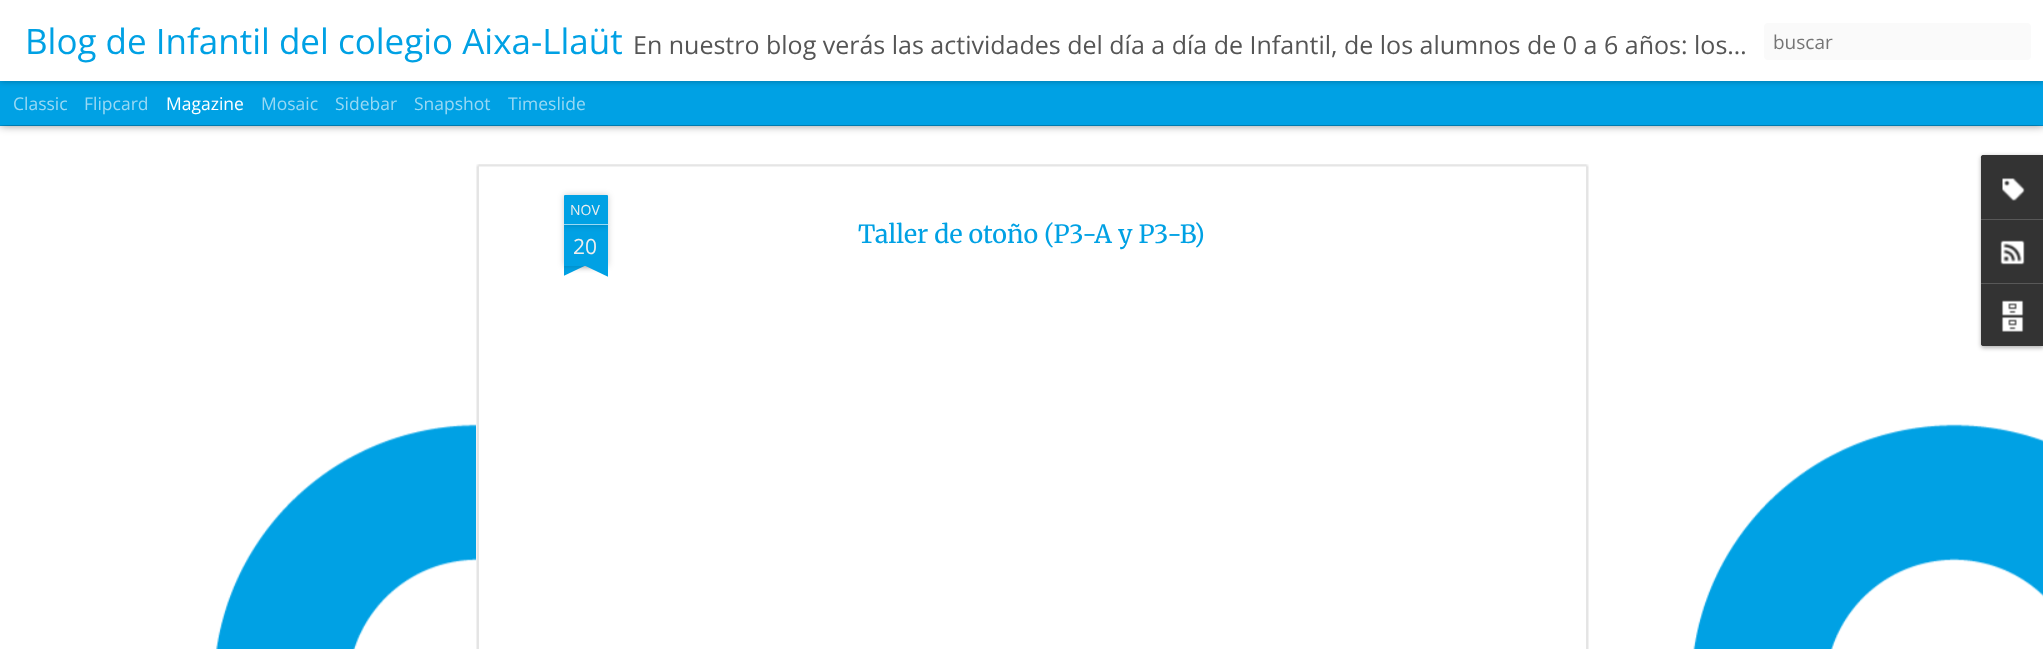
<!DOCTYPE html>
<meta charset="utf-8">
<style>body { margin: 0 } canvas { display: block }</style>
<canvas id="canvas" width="2043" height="649"></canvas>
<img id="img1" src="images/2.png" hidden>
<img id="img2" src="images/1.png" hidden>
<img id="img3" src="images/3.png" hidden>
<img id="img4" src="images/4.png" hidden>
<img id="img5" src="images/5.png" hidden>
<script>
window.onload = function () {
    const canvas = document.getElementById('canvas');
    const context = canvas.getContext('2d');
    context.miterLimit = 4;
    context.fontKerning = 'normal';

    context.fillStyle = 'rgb(0, 161, 228)';
    context.fillRect(0, 0, 2043, 649);
    context.fillStyle = 'rgb(255, 255, 255)';
    context.fillRect(0, 126, 2043, 523);
    context.fillStyle = 'rgba(0, 0, 0, 0.5)';
    context.filter = 'blur(5px)';
    context.beginPath();
    context.rect(0, 81, 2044, 44);
    context.fill();
    context.filter = 'none';
    context.fillStyle = 'rgb(0, 161, 228)';
    context.fillRect(0, 81, 2043, 44);
    context.fillStyle = 'rgba(0, 0, 0, 0.3)';
    context.filter = 'blur(3px)';
    context.beginPath();
    context.rect(0, 0, 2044, 81);
    context.fill();
    context.filter = 'none';
    context.fillStyle = 'rgb(255, 255, 255)';
    context.fillRect(0, 0, 2043, 81);
    context.fillStyle = 'rgb(250, 250, 250)';
    context.beginPath();
    context.roundRect(1764, 23, 267, 37, 4);
    context.fill();
    context.drawImage(document.getElementById('img1'), 216, 424, 1827, 225);
    context.fillStyle = 'rgb(255, 255, 255)';
    context.fillRect(476, 424, 853, 225);
    context.drawImage(document.getElementById('img2'), 476, 164, 1113, 485);
    context.fillStyle = 'rgba(0, 0, 0, 0.2)';
    context.filter = 'blur(3px)';
    context.beginPath();
    context.rect(564, 225, 44, 41);
    context.fill();
    context.filter = 'none';
    context.fillStyle = 'rgb(0, 161, 228)';
    context.fillRect(564, 225, 44, 41);
    context.fillStyle = 'rgba(0, 0, 0, 0.2)';
    context.filter = 'blur(3px)';
    context.beginPath();
    context.roundRect(564, 195, 44, 30, 1);
    context.fill();
    context.filter = 'none';
    context.fillStyle = 'rgb(0, 161, 228)';
    context.beginPath();
    context.roundRect(564, 195, 44, 30, [1, 1, 0, 0]);
    context.fill();
    context.fillStyle = 'rgb(153, 217, 244)';
    context.fillRect(564, 224, 44, 1);
    context.save();
    context.beginPath();
    context.rect(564, 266, 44, 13);
    context.clip();
    context.fillStyle = 'rgba(0, 0, 0, 0.2)';
    context.filter = 'blur(3px)';
    context.beginPath();
    context.rect(553, 254, 62, 12);
    context.fill();
    context.filter = 'none';
    context.restore();
    context.save();
    context.beginPath();
    context.rect(564, 266, 44, 13);
    context.clip();
    context.fillStyle = 'rgb(0, 161, 228)';
    context.beginPath();
    context.moveTo(552, 268);
    context.lineTo(609, 241);
    context.lineTo(614, 252);
    context.lineTo(557, 279);
    context.closePath();
    context.fill();
    context.restore();
    context.save();
    context.beginPath();
    context.rect(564, 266, 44, 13);
    context.clip();
    context.fillStyle = 'rgba(0, 0, 0, 0.2)';
    context.filter = 'blur(3px)';
    context.beginPath();
    context.rect(556, 254, 63, 12);
    context.fill();
    context.filter = 'none';
    context.restore();
    context.save();
    context.beginPath();
    context.rect(564, 266, 44, 13);
    context.clip();
    context.fillStyle = 'rgb(0, 161, 228)';
    context.beginPath();
    context.moveTo(561, 241);
    context.lineTo(618, 268);
    context.lineTo(613, 279);
    context.lineTo(556, 252);
    context.closePath();
    context.fill();
    context.restore();
    context.fillStyle = 'rgba(0, 0, 0, 0.3)';
    context.filter = 'blur(2px)';
    context.beginPath();
    context.roundRect(1981, 156, 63, 192, 2.5);
    context.fill();
    context.filter = 'none';
    context.fillStyle = 'rgb(51, 51, 51)';
    context.beginPath();
    context.moveTo(1983.5, 155);
    context.lineTo(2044, 155);
    context.lineTo(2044, 346);
    context.lineTo(1983.5, 346);
    context.bezierCurveTo(1982, 346, 1981, 345, 1981, 343.5);
    context.lineTo(1981, 157.5);
    context.bezierCurveTo(1981, 156, 1982, 155, 1983.5, 155);
    context.closePath();
    context.fill();
    context.beginPath();
    context.moveTo(1983.5, 155);
    context.lineTo(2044, 155);
    context.lineTo(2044, 219);
    context.lineTo(1981, 219);
    context.lineTo(1981, 157.5);
    context.bezierCurveTo(1981, 156, 1982, 155, 1983.5, 155);
    context.closePath();
    context.fill();
    context.drawImage(document.getElementById('img3'), 2002, 178, 23, 23);
    context.fillStyle = 'rgb(88, 88, 88)';
    context.fillRect(1981, 219, 62, 1);
    context.drawImage(document.getElementById('img4'), 2000, 240, 25, 25);
    context.fillStyle = 'rgb(51, 51, 51)';
    context.beginPath();
    context.moveTo(1981, 283);
    context.lineTo(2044, 283);
    context.lineTo(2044, 346);
    context.lineTo(1983.5, 346);
    context.bezierCurveTo(1982, 346, 1981, 345, 1981, 343.5);
    context.closePath();
    context.fill();
    context.fillStyle = 'rgb(88, 88, 88)';
    context.fillRect(1981, 283, 62, 1);
    context.drawImage(document.getElementById('img5'), 2001, 300, 23, 32);
    context.font = '35px Open Sans';
    context.fillStyle = 'rgb(0, 161, 228)';
    context.fillText('Blog de Infantil del colegio Aixa-Llaüt', 25, 54);
    context.font = '25px Open Sans';
    context.fillStyle = 'rgb(85, 85, 85)';
    context.fillText('En nuestro blog verás las actividades del día a día de Infantil, de los alumnos de 0 a 6 años: los…', 633, 54);
    context.font = '19px Open Sans';
    context.fillStyle = 'rgb(117, 117, 117)';
    context.fillText('buscar', 1773, 49);
    context.font = '17.5px Open Sans';
    context.fillStyle = 'rgb(153, 217, 244)';
    context.fillText('Classic', 13, 110);
    context.fillText('Flipcard', 84, 110);
    context.fillStyle = 'rgb(255, 255, 255)';
    context.fillText('Magazine', 166, 110);
    context.fillStyle = 'rgb(153, 217, 244)';
    context.fillText('Mosaic', 261, 110);
    context.fillText('Sidebar', 335, 110);
    context.fillText('Snapshot', 414, 110);
    context.fillText('Timeslide', 508, 110);
    context.font = '14px Open Sans';
    context.fillStyle = 'rgb(238, 238, 238)';
    context.fillText('NOV', 570, 215);
    context.font = '21px Open Sans';
    context.fillText('20', 573, 254);
    context.font = '300 25px Merriweather';
    context.fillStyle = 'rgb(0, 161, 228)';
    context.fillText('Taller de otoño (P3-A y P3-B)', 858, 243);
};
</script>
